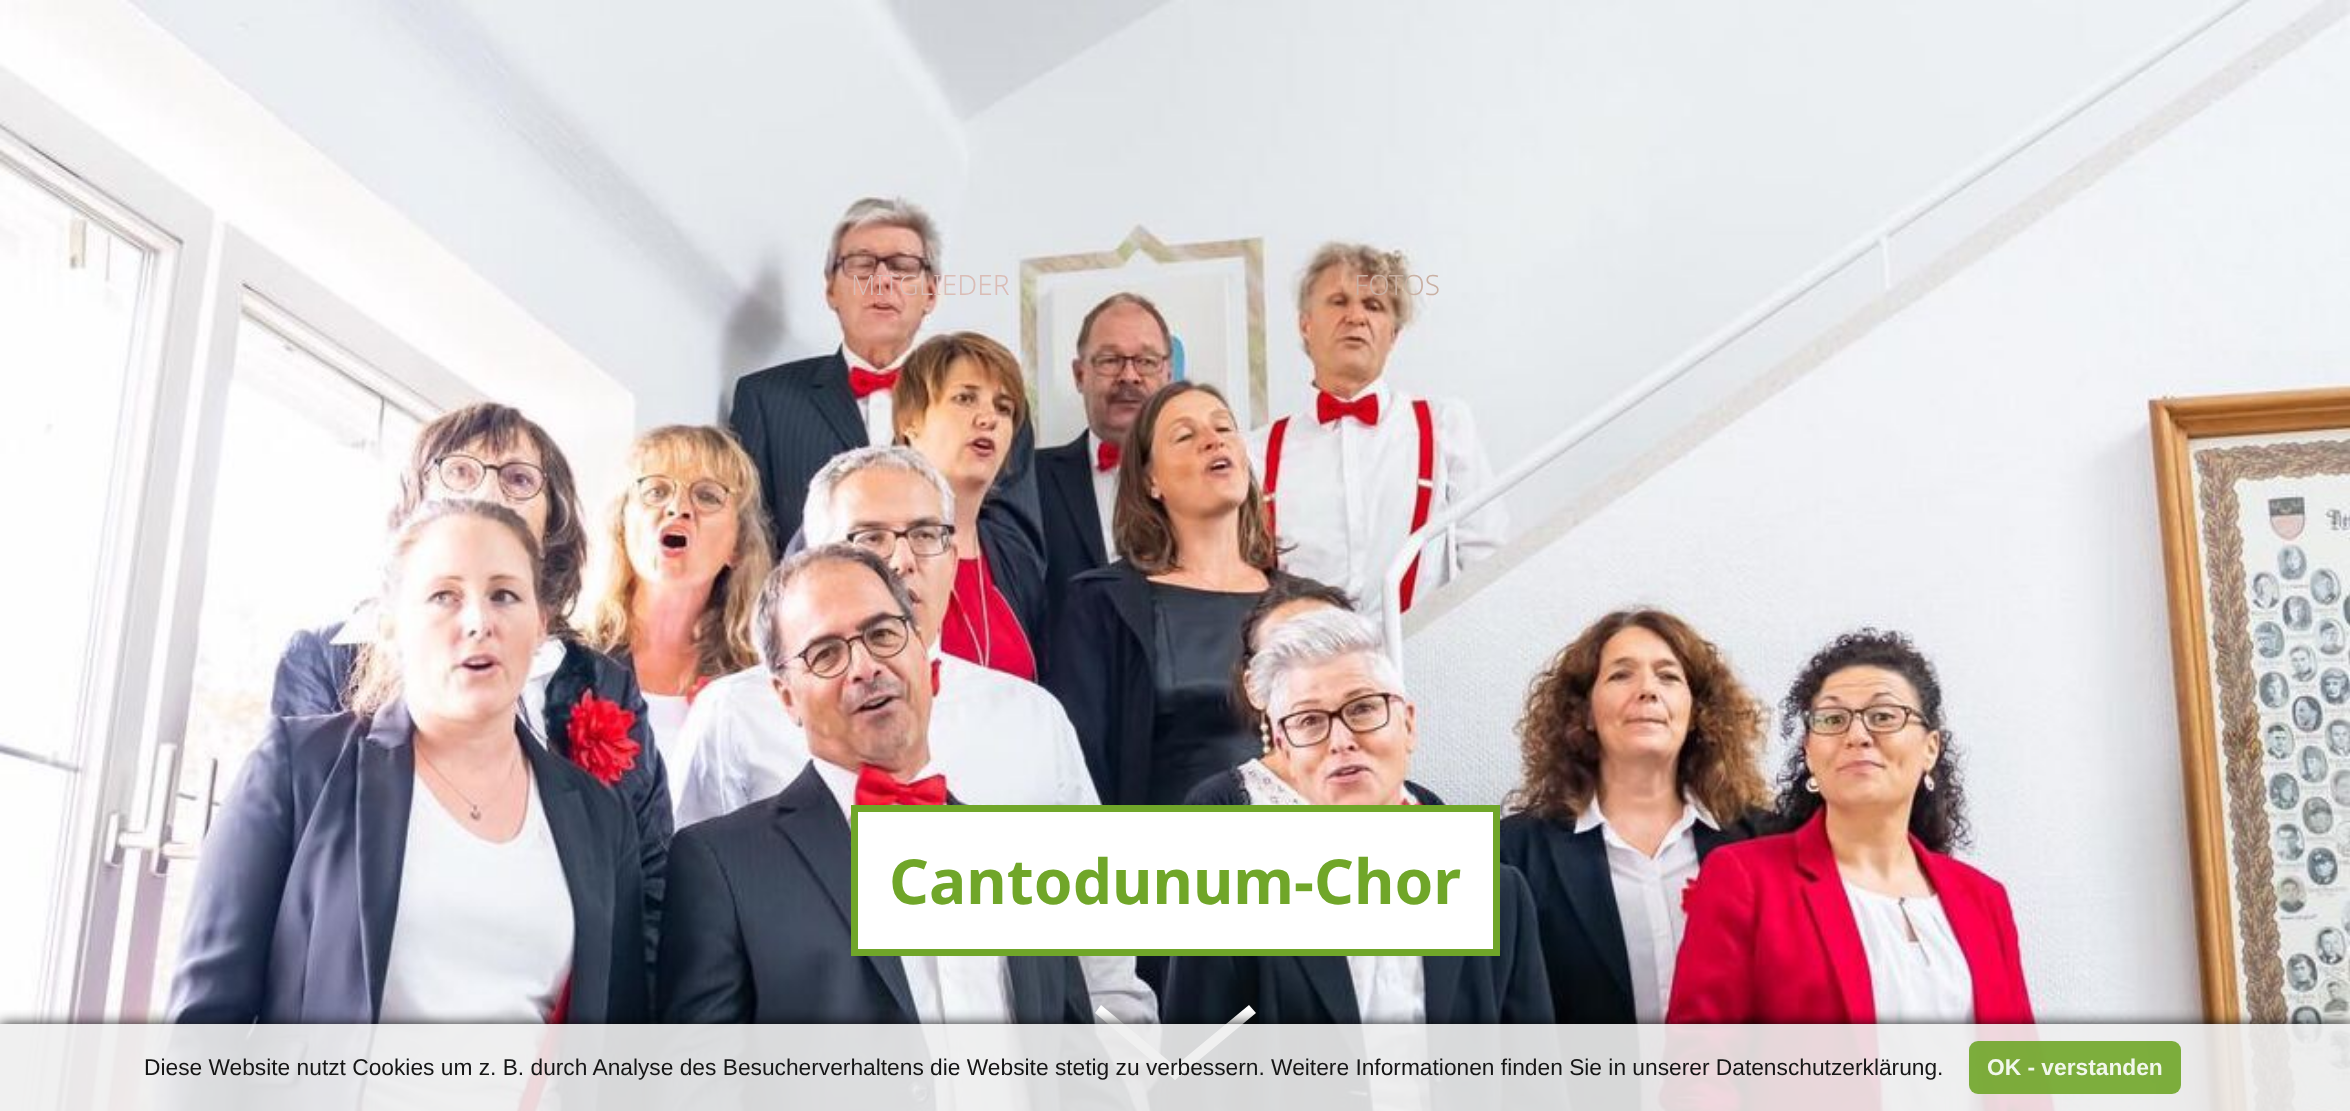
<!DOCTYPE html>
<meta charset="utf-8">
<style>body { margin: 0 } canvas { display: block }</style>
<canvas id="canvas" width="2350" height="1111"></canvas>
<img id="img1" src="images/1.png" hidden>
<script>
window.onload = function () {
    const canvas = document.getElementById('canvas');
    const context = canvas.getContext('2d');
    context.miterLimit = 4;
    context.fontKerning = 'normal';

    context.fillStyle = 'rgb(255, 255, 255)';
    context.fillRect(0, 0, 2350, 1111);
    context.drawImage(document.getElementById('img1'), 0, 0, 2350, 1111);
    context.beginPath();
    context.rect(854.5, 808.5, 642, 144);
    context.fill();
    context.strokeStyle = 'rgb(112, 166, 41)';
    context.lineWidth = 7;
    context.stroke();
    context.beginPath();
    context.moveTo(1101, 1005);
    context.lineTo(1182, 1072);
    context.lineTo(1175, 1080);
    context.lineTo(1095, 1013);
    context.closePath();
    context.fill();
    context.beginPath();
    context.moveTo(1168, 1072);
    context.lineTo(1249, 1005);
    context.lineTo(1256, 1013);
    context.lineTo(1175, 1080);
    context.closePath();
    context.fill();
    context.save();
    context.beginPath();
    context.rect(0, 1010, 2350, 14);
    context.clip();
    context.fillStyle = 'rgba(0, 0, 0, 0.9)';
    context.filter = 'blur(7px)';
    context.beginPath();
    context.rect(0, 1024, 2350, 87);
    context.fill();
    context.filter = 'none';
    context.restore();
    context.fillStyle = 'rgba(238, 238, 238, 0.9)';
    context.fillRect(0, 1024, 2350, 87);
    context.fillStyle = 'rgba(112, 166, 41, 0.9)';
    context.beginPath();
    context.roundRect(1969, 1041, 212, 53, 9);
    context.fill();
    context.font = '300 28px Noto Sans';
    context.fillStyle = 'rgb(218, 188, 181)';
    context.fillText('MITGLIEDER', 851, 295);
    context.fillStyle = 'rgb(201, 176, 163)';
    context.fillText('FOTOS', 1354, 295);
    context.font = 'bold 62.25px Noto Sans';
    context.fillStyle = 'rgb(112, 166, 41)';
    context.fillText('Cantodunum-Chor', 889, 904);
    context.font = '22.75px Liberation Sans';
    context.fillStyle = 'rgb(22, 22, 22)';
    context.fillText('Diese Website nutzt Cookies um z. B. durch Analyse des Besucherverhaltens die Website stetig zu verbessern. Weitere Informationen finden Sie in unserer Datenschutzerklärung.', 144, 1075);
    context.font = 'bold 22.75px Liberation Sans';
    context.fillStyle = 'rgb(242, 247, 236)';
    context.fillText('OK - verstanden', 1987, 1075);
};
</script>
